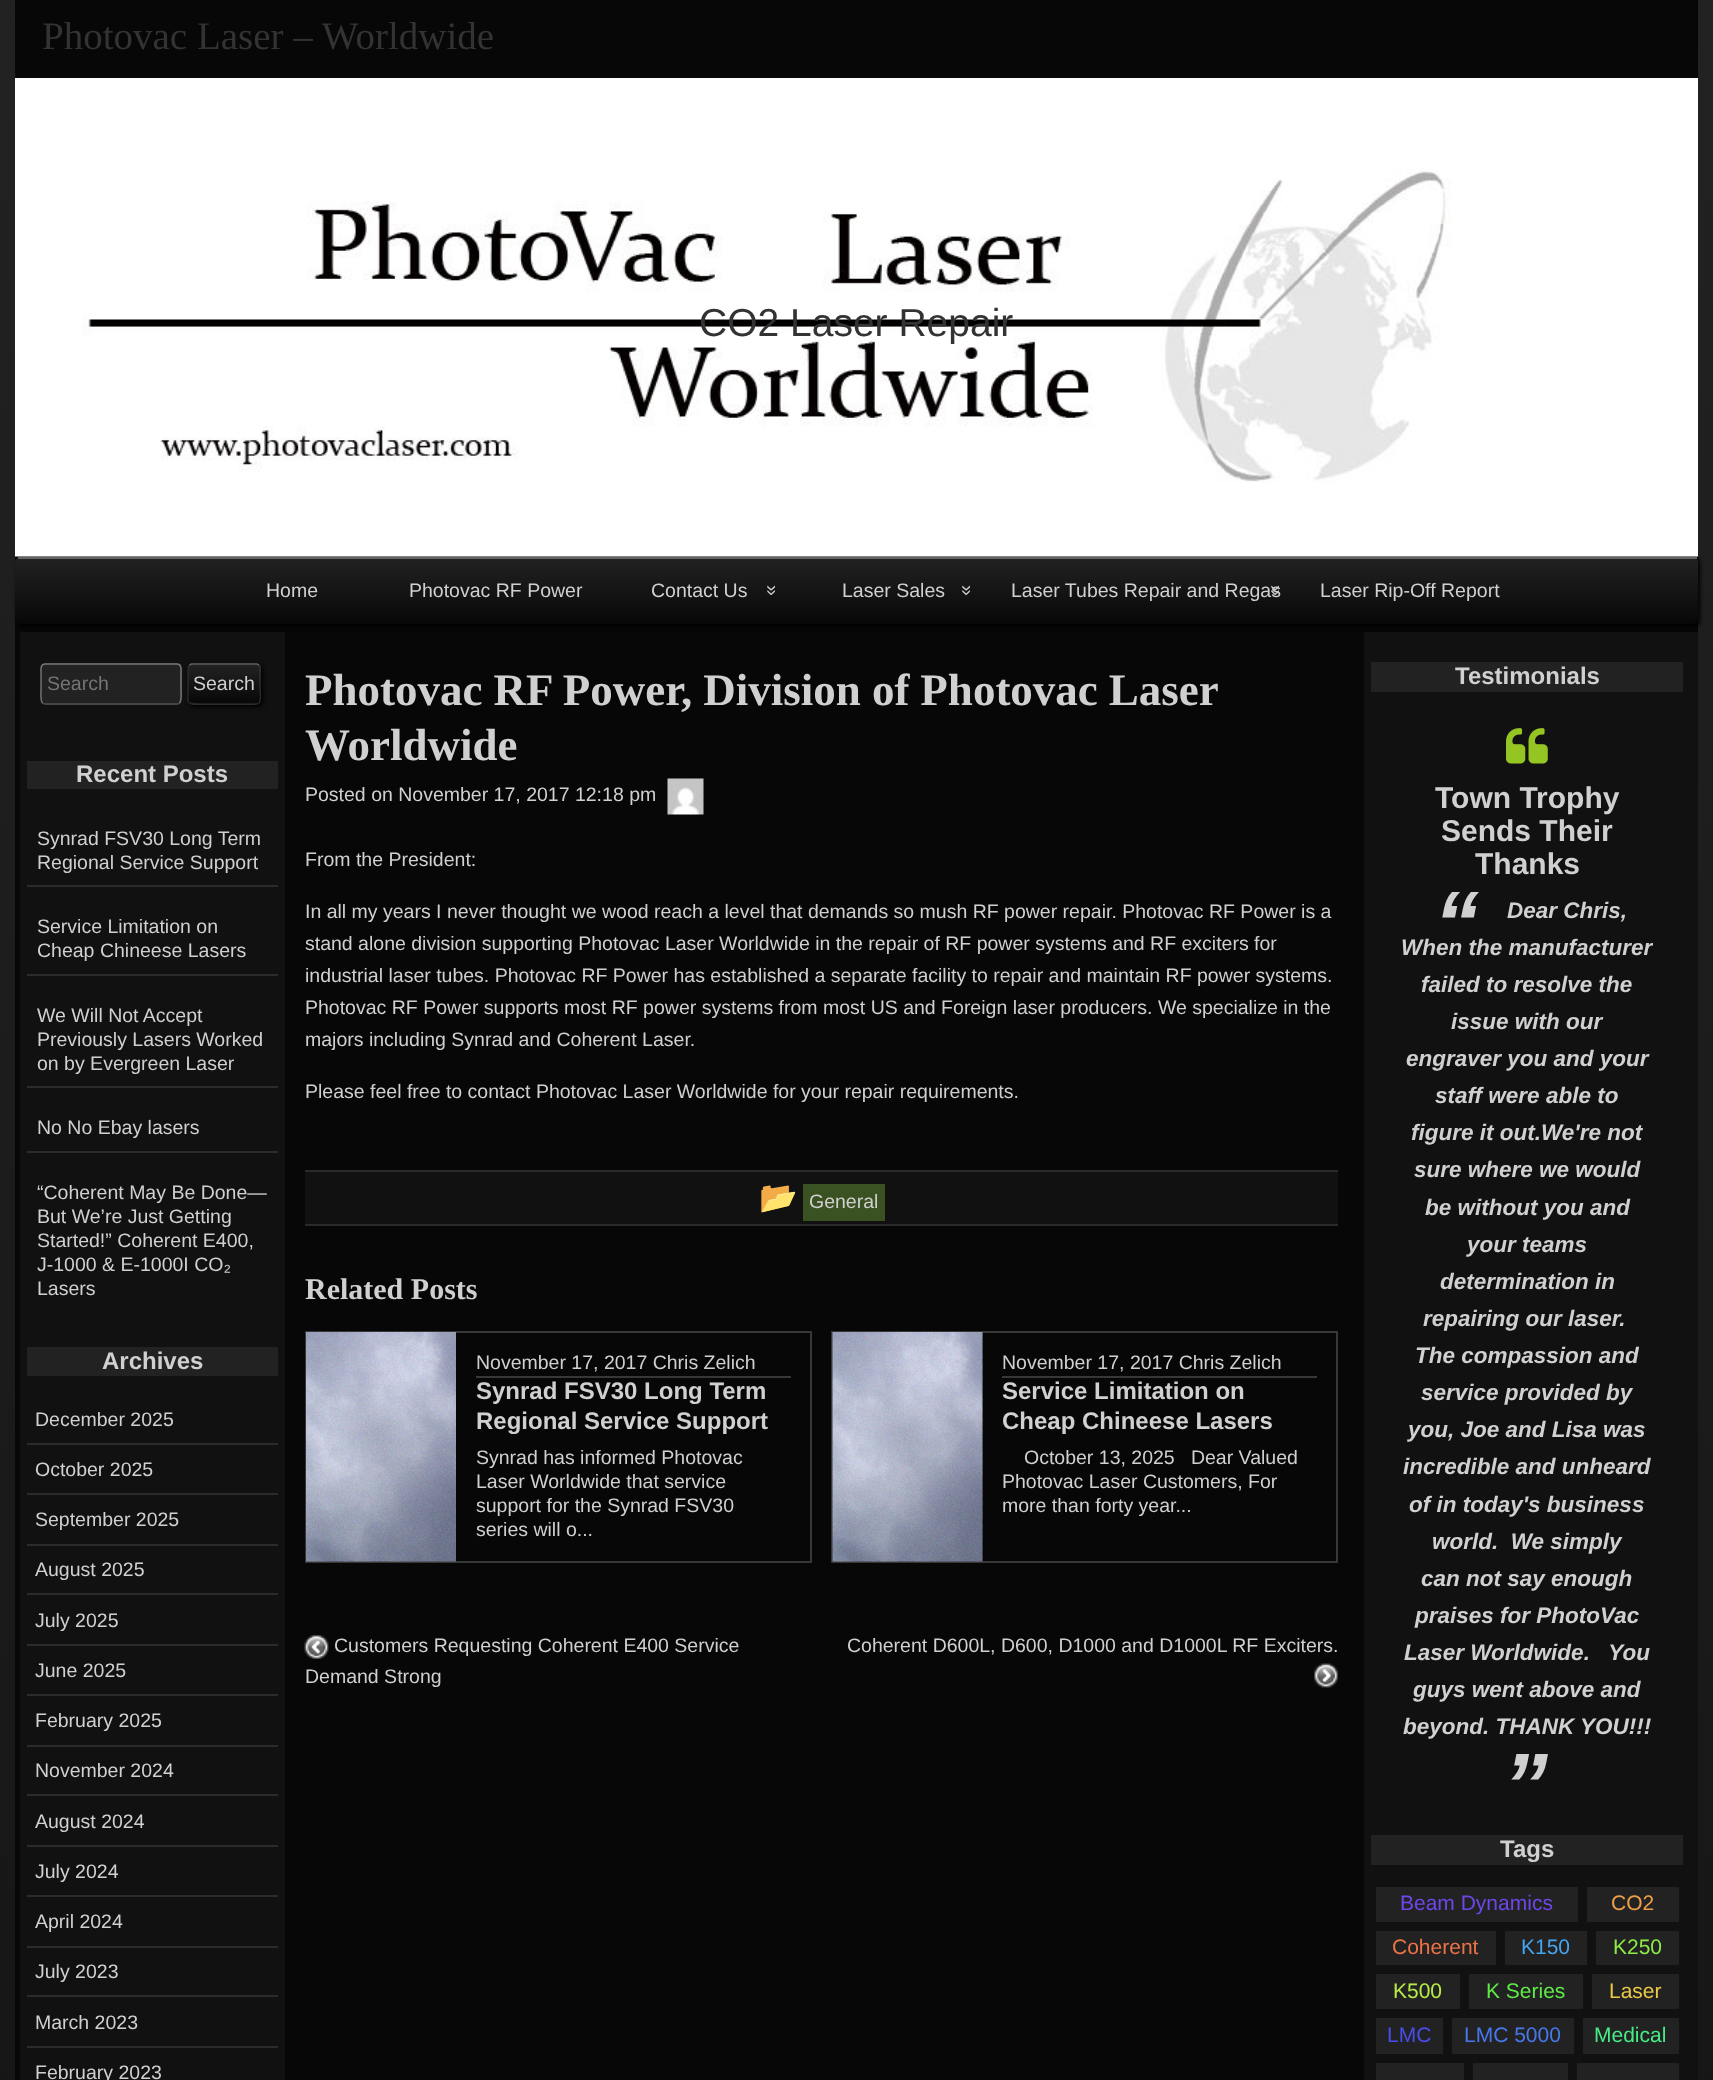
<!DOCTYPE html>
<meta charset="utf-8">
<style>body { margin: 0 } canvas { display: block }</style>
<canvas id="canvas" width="1713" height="2080"></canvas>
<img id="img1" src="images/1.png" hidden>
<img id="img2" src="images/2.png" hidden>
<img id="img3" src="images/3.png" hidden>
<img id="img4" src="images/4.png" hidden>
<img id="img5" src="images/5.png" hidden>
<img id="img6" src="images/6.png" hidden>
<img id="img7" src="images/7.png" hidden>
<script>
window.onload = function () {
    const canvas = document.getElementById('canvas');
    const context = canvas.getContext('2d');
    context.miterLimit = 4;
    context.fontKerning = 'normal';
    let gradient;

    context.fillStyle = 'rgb(255, 255, 255)';
    context.fillRect(0, 0, 1713, 2080);
    gradient = context.createLinearGradient(0, 0, 0, 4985);
    gradient.addColorStop(0, 'rgb(34, 34, 34)');
    gradient.addColorStop(1, 'rgb(7, 7, 7)');
    context.fillStyle = gradient;
    context.fillRect(0, 0, 1713, 2080);
    context.fillStyle = 'rgb(7, 7, 7)';
    context.fillRect(15, 0, 1683, 2080);
    context.fillStyle = 'rgb(0, 0, 0)';
    context.filter = 'blur(2px)';
    context.beginPath();
    context.roundRect(17, 558, 1683, 68, 5);
    context.fill();
    context.filter = 'none';
    context.drawImage(document.getElementById('img1'), 15, 78, 1683, 479);
    context.save();
    context.beginPath();
    context.roundRect(15, 557, 1683, 67, 5);
    context.clip();
    gradient = context.createLinearGradient(15, 558, 15, 624);
    gradient.addColorStop(0, 'rgb(34, 34, 34)');
    gradient.addColorStop(1, 'rgb(7, 7, 7)');
    context.fillStyle = gradient;
    context.beginPath();
    context.roundRect(15, 558, 1683, 66, [0, 0, 5, 5]);
    context.fill();
    context.restore();
    context.fillStyle = 'rgb(100, 100, 100)';
    context.fillRect(18, 557, 1679, 2);
    context.fillStyle = 'rgb(17, 17, 17)';
    context.fillRect(20, 632, 265, 1448);
    context.fillStyle = 'rgb(34, 34, 34)';
    context.beginPath();
    context.roundRect(41, 663, 141, 42, 5);
    context.fill();
    context.beginPath();
    context.moveTo(179.5, 703);
    context.bezierCurveTo(179, 704, 178, 704, 177, 704);
    context.lineTo(45, 704);
    context.bezierCurveTo(44, 704, 43, 704, 42.5, 703);
    context.strokeStyle = 'rgba(127, 127, 127, 0.5)';
    context.lineWidth = 1.5;
    context.stroke();
    context.beginPath();
    context.moveTo(42.5, 703);
    context.bezierCurveTo(40, 700.5, 41, 692, 41, 689.5);
    context.lineTo(41, 673);
    context.bezierCurveTo(41, 670, 40, 664, 45, 664);
    context.lineTo(177, 664);
    context.bezierCurveTo(182, 664, 181, 670, 181, 673);
    context.lineTo(181, 689.5);
    context.bezierCurveTo(181, 692, 182, 700.5, 179.5, 703);
    context.strokeStyle = 'rgba(203, 203, 203, 0.5)';
    context.stroke();
    context.fillStyle = 'rgb(0, 0, 0)';
    context.filter = 'blur(2px)';
    context.beginPath();
    context.roundRect(189, 665, 74, 42, 5);
    context.fill();
    context.filter = 'none';
    context.save();
    context.beginPath();
    context.roundRect(188, 663, 73, 42, 5);
    context.clip();
    gradient = context.createLinearGradient(189, 626, 189, 665);
    gradient.addColorStop(0, 'rgb(34, 34, 34)');
    gradient.addColorStop(1, 'rgb(7, 7, 7)');
    context.fillStyle = gradient;
    context.fillRect(188, 663, 73, 2);
    gradient = context.createLinearGradient(189, 665, 189, 704);
    gradient.addColorStop(0, 'rgb(34, 34, 34)');
    gradient.addColorStop(1, 'rgb(7, 7, 7)');
    context.fillStyle = gradient;
    context.fillRect(188, 665, 73, 39);
    gradient = context.createLinearGradient(189, 704, 189, 743);
    gradient.addColorStop(0, 'rgb(34, 34, 34)');
    gradient.addColorStop(1, 'rgb(7, 7, 7)');
    context.fillStyle = gradient;
    context.fillRect(188, 704, 73, 1);
    context.restore();
    context.beginPath();
    context.moveTo(189.5, 665);
    context.lineTo(191.5, 664);
    context.lineTo(257, 664);
    context.lineTo(259, 665);
    context.strokeStyle = 'rgb(100, 100, 100)';
    context.stroke();
    context.beginPath();
    context.moveTo(259, 665);
    context.bezierCurveTo(261, 667, 260, 671, 260, 673);
    context.lineTo(260, 684);
    context.bezierCurveTo(260, 705, 264.5, 704, 246, 704);
    context.lineTo(203, 704);
    context.bezierCurveTo(184, 704, 188, 705, 188, 684);
    context.lineTo(188, 673);
    context.bezierCurveTo(188, 671, 187.5, 667, 189.5, 665);
    context.strokeStyle = 'rgba(68, 68, 68, 0.5)';
    context.stroke();
    context.fillStyle = 'rgb(34, 34, 34)';
    context.fillRect(27, 761, 251, 28);
    context.fillStyle = 'rgb(43, 43, 43)';
    context.fillRect(27, 885, 251, 2);
    context.fillRect(27, 974, 251, 2);
    context.fillRect(27, 1086, 251, 2);
    context.fillRect(27, 1151, 251, 2);
    context.fillStyle = 'rgb(34, 34, 34)';
    context.fillRect(27, 1347, 251, 29);
    context.fillStyle = 'rgb(43, 43, 43)';
    context.fillRect(27, 1443, 251, 2);
    context.fillRect(27, 1493, 251, 2);
    context.fillRect(27, 1544, 251, 2);
    context.fillRect(27, 1593, 251, 2);
    context.fillRect(27, 1644, 251, 2);
    context.fillRect(27, 1694, 251, 2);
    context.fillRect(27, 1745, 251, 2);
    context.fillRect(27, 1794, 251, 2);
    context.fillRect(27, 1845, 251, 2);
    context.fillRect(27, 1895, 251, 2);
    context.fillRect(27, 1946, 251, 2);
    context.fillRect(27, 1995, 251, 2);
    context.fillRect(27, 2046, 251, 2);
    context.drawImage(document.getElementById('img2'), 667, 778, 37, 37);
    context.fillStyle = 'rgb(17, 17, 17)';
    context.fillRect(305, 1172, 1033, 52);
    context.fillStyle = 'rgb(43, 43, 43)';
    context.fillRect(305, 1170, 1033, 2);
    context.fillRect(305, 1224, 1033, 2);
    context.fillStyle = 'rgb(58, 82, 33)';
    context.fillRect(803, 1184, 82, 37);
    context.strokeStyle = 'rgb(55, 55, 55)';
    context.lineWidth = 2;
    context.strokeRect(306, 1332, 505, 230);
    gradient = context.createLinearGradient(286, 1352, 477, 1543);
    gradient.addColorStop(0, 'rgba(127, 127, 127, 0)');
    gradient.addColorStop(0.01, 'rgba(127, 127, 127, 0.3)');
    gradient.addColorStop(0.02, 'rgba(127, 127, 127, 0.1)');
    gradient.addColorStop(0.03, 'rgba(127, 127, 127, 0.1)');
    gradient.addColorStop(0.03, 'rgba(127, 127, 127, 0)');
    gradient.addColorStop(0.04, 'rgba(127, 127, 127, 0.3)');
    gradient.addColorStop(0.04, 'rgba(127, 127, 127, 0.1)');
    gradient.addColorStop(0.06, 'rgba(127, 127, 127, 0.1)');
    gradient.addColorStop(0.06, 'rgba(127, 127, 127, 0)');
    gradient.addColorStop(0.07, 'rgba(127, 127, 127, 0.3)');
    gradient.addColorStop(0.07, 'rgba(127, 127, 127, 0.1)');
    gradient.addColorStop(0.08, 'rgba(127, 127, 127, 0.1)');
    gradient.addColorStop(0.08, 'rgba(127, 127, 127, 0)');
    gradient.addColorStop(0.09, 'rgba(127, 127, 127, 0.3)');
    gradient.addColorStop(0.1, 'rgba(127, 127, 127, 0.1)');
    gradient.addColorStop(0.11, 'rgba(127, 127, 127, 0.1)');
    gradient.addColorStop(0.11, 'rgba(127, 127, 127, 0)');
    gradient.addColorStop(0.12, 'rgba(127, 127, 127, 0.3)');
    gradient.addColorStop(0.13, 'rgba(127, 127, 127, 0.1)');
    gradient.addColorStop(0.14, 'rgba(127, 127, 127, 0.1)');
    gradient.addColorStop(0.14, 'rgba(127, 127, 127, 0)');
    gradient.addColorStop(0.15, 'rgba(127, 127, 127, 0.3)');
    gradient.addColorStop(0.16, 'rgba(127, 127, 127, 0.1)');
    gradient.addColorStop(0.17, 'rgba(127, 127, 127, 0.1)');
    gradient.addColorStop(0.17, 'rgba(127, 127, 127, 0)');
    gradient.addColorStop(0.18, 'rgba(127, 127, 127, 0.3)');
    gradient.addColorStop(0.18, 'rgba(127, 127, 127, 0.1)');
    gradient.addColorStop(0.19, 'rgba(127, 127, 127, 0.1)');
    gradient.addColorStop(0.19, 'rgba(127, 127, 127, 0)');
    gradient.addColorStop(0.21, 'rgba(127, 127, 127, 0.3)');
    gradient.addColorStop(0.21, 'rgba(127, 127, 127, 0.1)');
    gradient.addColorStop(0.22, 'rgba(127, 127, 127, 0.1)');
    gradient.addColorStop(0.22, 'rgba(127, 127, 127, 0)');
    gradient.addColorStop(0.23, 'rgba(127, 127, 127, 0.3)');
    gradient.addColorStop(0.24, 'rgba(127, 127, 127, 0.1)');
    gradient.addColorStop(0.25, 'rgba(127, 127, 127, 0.1)');
    gradient.addColorStop(0.25, 'rgba(127, 127, 127, 0)');
    gradient.addColorStop(0.26, 'rgba(127, 127, 127, 0.3)');
    gradient.addColorStop(0.27, 'rgba(127, 127, 127, 0.1)');
    gradient.addColorStop(0.28, 'rgba(127, 127, 127, 0.1)');
    gradient.addColorStop(0.28, 'rgba(127, 127, 127, 0)');
    gradient.addColorStop(0.29, 'rgba(127, 127, 127, 0.3)');
    gradient.addColorStop(0.29, 'rgba(127, 127, 127, 0.1)');
    gradient.addColorStop(0.31, 'rgba(127, 127, 127, 0.1)');
    gradient.addColorStop(0.31, 'rgba(127, 127, 127, 0)');
    gradient.addColorStop(0.32, 'rgba(127, 127, 127, 0.3)');
    gradient.addColorStop(0.32, 'rgba(127, 127, 127, 0.1)');
    gradient.addColorStop(0.33, 'rgba(127, 127, 127, 0.1)');
    gradient.addColorStop(0.33, 'rgba(127, 127, 127, 0)');
    gradient.addColorStop(0.34, 'rgba(127, 127, 127, 0.3)');
    gradient.addColorStop(0.35, 'rgba(127, 127, 127, 0.1)');
    gradient.addColorStop(0.36, 'rgba(127, 127, 127, 0.1)');
    gradient.addColorStop(0.36, 'rgba(127, 127, 127, 0)');
    gradient.addColorStop(0.37, 'rgba(127, 127, 127, 0.3)');
    gradient.addColorStop(0.38, 'rgba(127, 127, 127, 0.1)');
    gradient.addColorStop(0.39, 'rgba(127, 127, 127, 0.1)');
    gradient.addColorStop(0.39, 'rgba(127, 127, 127, 0)');
    gradient.addColorStop(0.4, 'rgba(127, 127, 127, 0.3)');
    gradient.addColorStop(0.41, 'rgba(127, 127, 127, 0.1)');
    gradient.addColorStop(0.42, 'rgba(127, 127, 127, 0.1)');
    gradient.addColorStop(0.42, 'rgba(127, 127, 127, 0)');
    gradient.addColorStop(0.43, 'rgba(127, 127, 127, 0.3)');
    gradient.addColorStop(0.43, 'rgba(127, 127, 127, 0.1)');
    gradient.addColorStop(0.44, 'rgba(127, 127, 127, 0.1)');
    gradient.addColorStop(0.44, 'rgba(127, 127, 127, 0)');
    gradient.addColorStop(0.46, 'rgba(127, 127, 127, 0.3)');
    gradient.addColorStop(0.46, 'rgba(127, 127, 127, 0.1)');
    gradient.addColorStop(0.47, 'rgba(127, 127, 127, 0.1)');
    gradient.addColorStop(0.47, 'rgba(127, 127, 127, 0)');
    gradient.addColorStop(0.48, 'rgba(127, 127, 127, 0.3)');
    gradient.addColorStop(0.49, 'rgba(127, 127, 127, 0.1)');
    gradient.addColorStop(0.5, 'rgba(127, 127, 127, 0.1)');
    gradient.addColorStop(0.5, 'rgba(127, 127, 127, 0)');
    gradient.addColorStop(0.51, 'rgba(127, 127, 127, 0.3)');
    gradient.addColorStop(0.52, 'rgba(127, 127, 127, 0.1)');
    gradient.addColorStop(0.53, 'rgba(127, 127, 127, 0.1)');
    gradient.addColorStop(0.53, 'rgba(127, 127, 127, 0)');
    gradient.addColorStop(0.54, 'rgba(127, 127, 127, 0.3)');
    gradient.addColorStop(0.54, 'rgba(127, 127, 127, 0.1)');
    gradient.addColorStop(0.56, 'rgba(127, 127, 127, 0.1)');
    gradient.addColorStop(0.56, 'rgba(127, 127, 127, 0)');
    gradient.addColorStop(0.57, 'rgba(127, 127, 127, 0.3)');
    gradient.addColorStop(0.57, 'rgba(127, 127, 127, 0.1)');
    gradient.addColorStop(0.58, 'rgba(127, 127, 127, 0.1)');
    gradient.addColorStop(0.58, 'rgba(127, 127, 127, 0)');
    gradient.addColorStop(0.59, 'rgba(127, 127, 127, 0.3)');
    gradient.addColorStop(0.6, 'rgba(127, 127, 127, 0.1)');
    gradient.addColorStop(0.61, 'rgba(127, 127, 127, 0.1)');
    gradient.addColorStop(0.61, 'rgba(127, 127, 127, 0)');
    gradient.addColorStop(0.62, 'rgba(127, 127, 127, 0.3)');
    gradient.addColorStop(0.63, 'rgba(127, 127, 127, 0.1)');
    gradient.addColorStop(0.64, 'rgba(127, 127, 127, 0.1)');
    gradient.addColorStop(0.64, 'rgba(127, 127, 127, 0)');
    gradient.addColorStop(0.65, 'rgba(127, 127, 127, 0.3)');
    gradient.addColorStop(0.66, 'rgba(127, 127, 127, 0.1)');
    gradient.addColorStop(0.67, 'rgba(127, 127, 127, 0.1)');
    gradient.addColorStop(0.67, 'rgba(127, 127, 127, 0)');
    gradient.addColorStop(0.68, 'rgba(127, 127, 127, 0.3)');
    gradient.addColorStop(0.68, 'rgba(127, 127, 127, 0.1)');
    gradient.addColorStop(0.69, 'rgba(127, 127, 127, 0.1)');
    gradient.addColorStop(0.69, 'rgba(127, 127, 127, 0)');
    gradient.addColorStop(0.71, 'rgba(127, 127, 127, 0.3)');
    gradient.addColorStop(0.71, 'rgba(127, 127, 127, 0.1)');
    gradient.addColorStop(0.72, 'rgba(127, 127, 127, 0.1)');
    gradient.addColorStop(0.72, 'rgba(127, 127, 127, 0)');
    gradient.addColorStop(0.73, 'rgba(127, 127, 127, 0.3)');
    gradient.addColorStop(0.74, 'rgba(127, 127, 127, 0.1)');
    gradient.addColorStop(0.75, 'rgba(127, 127, 127, 0.1)');
    gradient.addColorStop(0.75, 'rgba(127, 127, 127, 0)');
    gradient.addColorStop(0.76, 'rgba(127, 127, 127, 0.3)');
    gradient.addColorStop(0.77, 'rgba(127, 127, 127, 0.1)');
    gradient.addColorStop(0.78, 'rgba(127, 127, 127, 0.1)');
    gradient.addColorStop(0.78, 'rgba(127, 127, 127, 0)');
    gradient.addColorStop(0.79, 'rgba(127, 127, 127, 0.3)');
    gradient.addColorStop(0.79, 'rgba(127, 127, 127, 0.1)');
    gradient.addColorStop(0.81, 'rgba(127, 127, 127, 0.1)');
    gradient.addColorStop(0.81, 'rgba(127, 127, 127, 0)');
    gradient.addColorStop(0.82, 'rgba(127, 127, 127, 0.3)');
    gradient.addColorStop(0.82, 'rgba(127, 127, 127, 0.1)');
    gradient.addColorStop(0.83, 'rgba(127, 127, 127, 0.1)');
    gradient.addColorStop(0.83, 'rgba(127, 127, 127, 0)');
    gradient.addColorStop(0.84, 'rgba(127, 127, 127, 0.3)');
    gradient.addColorStop(0.85, 'rgba(127, 127, 127, 0.1)');
    gradient.addColorStop(0.86, 'rgba(127, 127, 127, 0.1)');
    gradient.addColorStop(0.86, 'rgba(127, 127, 127, 0)');
    gradient.addColorStop(0.87, 'rgba(127, 127, 127, 0.3)');
    gradient.addColorStop(0.88, 'rgba(127, 127, 127, 0.1)');
    gradient.addColorStop(0.89, 'rgba(127, 127, 127, 0.1)');
    gradient.addColorStop(0.89, 'rgba(127, 127, 127, 0)');
    gradient.addColorStop(0.9, 'rgba(127, 127, 127, 0.3)');
    gradient.addColorStop(0.91, 'rgba(127, 127, 127, 0.1)');
    gradient.addColorStop(0.92, 'rgba(127, 127, 127, 0.1)');
    gradient.addColorStop(0.92, 'rgba(127, 127, 127, 0)');
    gradient.addColorStop(0.93, 'rgba(127, 127, 127, 0.3)');
    gradient.addColorStop(0.93, 'rgba(127, 127, 127, 0.1)');
    gradient.addColorStop(0.94, 'rgba(127, 127, 127, 0.1)');
    gradient.addColorStop(0.94, 'rgba(127, 127, 127, 0)');
    gradient.addColorStop(0.96, 'rgba(127, 127, 127, 0.3)');
    gradient.addColorStop(0.96, 'rgba(127, 127, 127, 0.1)');
    gradient.addColorStop(0.97, 'rgba(127, 127, 127, 0.1)');
    gradient.addColorStop(0.97, 'rgba(127, 127, 127, 0)');
    gradient.addColorStop(0.98, 'rgba(127, 127, 127, 0.3)');
    gradient.addColorStop(0.99, 'rgba(127, 127, 127, 0.1)');
    gradient.addColorStop(1, 'rgba(127, 127, 127, 0.1)');
    context.fillStyle = gradient;
    context.fillRect(306, 1561, 150, 1);
    context.drawImage(document.getElementById('img3'), 306, 1332, 150, 230);
    context.fillStyle = 'rgb(55, 55, 55)';
    context.fillRect(476, 1376, 315, 2);
    context.strokeRect(832, 1332, 505, 230);
    gradient = context.createLinearGradient(813, 1352, 1004, 1543);
    gradient.addColorStop(0, 'rgba(127, 127, 127, 0)');
    gradient.addColorStop(0.01, 'rgba(127, 127, 127, 0.3)');
    gradient.addColorStop(0.02, 'rgba(127, 127, 127, 0.1)');
    gradient.addColorStop(0.03, 'rgba(127, 127, 127, 0.1)');
    gradient.addColorStop(0.03, 'rgba(127, 127, 127, 0)');
    gradient.addColorStop(0.04, 'rgba(127, 127, 127, 0.3)');
    gradient.addColorStop(0.04, 'rgba(127, 127, 127, 0.1)');
    gradient.addColorStop(0.06, 'rgba(127, 127, 127, 0.1)');
    gradient.addColorStop(0.06, 'rgba(127, 127, 127, 0)');
    gradient.addColorStop(0.07, 'rgba(127, 127, 127, 0.3)');
    gradient.addColorStop(0.07, 'rgba(127, 127, 127, 0.1)');
    gradient.addColorStop(0.08, 'rgba(127, 127, 127, 0.1)');
    gradient.addColorStop(0.08, 'rgba(127, 127, 127, 0)');
    gradient.addColorStop(0.09, 'rgba(127, 127, 127, 0.3)');
    gradient.addColorStop(0.1, 'rgba(127, 127, 127, 0.1)');
    gradient.addColorStop(0.11, 'rgba(127, 127, 127, 0.1)');
    gradient.addColorStop(0.11, 'rgba(127, 127, 127, 0)');
    gradient.addColorStop(0.12, 'rgba(127, 127, 127, 0.3)');
    gradient.addColorStop(0.13, 'rgba(127, 127, 127, 0.1)');
    gradient.addColorStop(0.14, 'rgba(127, 127, 127, 0.1)');
    gradient.addColorStop(0.14, 'rgba(127, 127, 127, 0)');
    gradient.addColorStop(0.15, 'rgba(127, 127, 127, 0.3)');
    gradient.addColorStop(0.16, 'rgba(127, 127, 127, 0.1)');
    gradient.addColorStop(0.17, 'rgba(127, 127, 127, 0.1)');
    gradient.addColorStop(0.17, 'rgba(127, 127, 127, 0)');
    gradient.addColorStop(0.18, 'rgba(127, 127, 127, 0.3)');
    gradient.addColorStop(0.18, 'rgba(127, 127, 127, 0.1)');
    gradient.addColorStop(0.19, 'rgba(127, 127, 127, 0.1)');
    gradient.addColorStop(0.19, 'rgba(127, 127, 127, 0)');
    gradient.addColorStop(0.21, 'rgba(127, 127, 127, 0.3)');
    gradient.addColorStop(0.21, 'rgba(127, 127, 127, 0.1)');
    gradient.addColorStop(0.22, 'rgba(127, 127, 127, 0.1)');
    gradient.addColorStop(0.22, 'rgba(127, 127, 127, 0)');
    gradient.addColorStop(0.23, 'rgba(127, 127, 127, 0.3)');
    gradient.addColorStop(0.24, 'rgba(127, 127, 127, 0.1)');
    gradient.addColorStop(0.25, 'rgba(127, 127, 127, 0.1)');
    gradient.addColorStop(0.25, 'rgba(127, 127, 127, 0)');
    gradient.addColorStop(0.26, 'rgba(127, 127, 127, 0.3)');
    gradient.addColorStop(0.27, 'rgba(127, 127, 127, 0.1)');
    gradient.addColorStop(0.28, 'rgba(127, 127, 127, 0.1)');
    gradient.addColorStop(0.28, 'rgba(127, 127, 127, 0)');
    gradient.addColorStop(0.29, 'rgba(127, 127, 127, 0.3)');
    gradient.addColorStop(0.29, 'rgba(127, 127, 127, 0.1)');
    gradient.addColorStop(0.31, 'rgba(127, 127, 127, 0.1)');
    gradient.addColorStop(0.31, 'rgba(127, 127, 127, 0)');
    gradient.addColorStop(0.32, 'rgba(127, 127, 127, 0.3)');
    gradient.addColorStop(0.32, 'rgba(127, 127, 127, 0.1)');
    gradient.addColorStop(0.33, 'rgba(127, 127, 127, 0.1)');
    gradient.addColorStop(0.33, 'rgba(127, 127, 127, 0)');
    gradient.addColorStop(0.34, 'rgba(127, 127, 127, 0.3)');
    gradient.addColorStop(0.35, 'rgba(127, 127, 127, 0.1)');
    gradient.addColorStop(0.36, 'rgba(127, 127, 127, 0.1)');
    gradient.addColorStop(0.36, 'rgba(127, 127, 127, 0)');
    gradient.addColorStop(0.37, 'rgba(127, 127, 127, 0.3)');
    gradient.addColorStop(0.38, 'rgba(127, 127, 127, 0.1)');
    gradient.addColorStop(0.39, 'rgba(127, 127, 127, 0.1)');
    gradient.addColorStop(0.39, 'rgba(127, 127, 127, 0)');
    gradient.addColorStop(0.4, 'rgba(127, 127, 127, 0.3)');
    gradient.addColorStop(0.41, 'rgba(127, 127, 127, 0.1)');
    gradient.addColorStop(0.42, 'rgba(127, 127, 127, 0.1)');
    gradient.addColorStop(0.42, 'rgba(127, 127, 127, 0)');
    gradient.addColorStop(0.43, 'rgba(127, 127, 127, 0.3)');
    gradient.addColorStop(0.43, 'rgba(127, 127, 127, 0.1)');
    gradient.addColorStop(0.44, 'rgba(127, 127, 127, 0.1)');
    gradient.addColorStop(0.44, 'rgba(127, 127, 127, 0)');
    gradient.addColorStop(0.46, 'rgba(127, 127, 127, 0.3)');
    gradient.addColorStop(0.46, 'rgba(127, 127, 127, 0.1)');
    gradient.addColorStop(0.47, 'rgba(127, 127, 127, 0.1)');
    gradient.addColorStop(0.47, 'rgba(127, 127, 127, 0)');
    gradient.addColorStop(0.48, 'rgba(127, 127, 127, 0.3)');
    gradient.addColorStop(0.49, 'rgba(127, 127, 127, 0.1)');
    gradient.addColorStop(0.5, 'rgba(127, 127, 127, 0.1)');
    gradient.addColorStop(0.5, 'rgba(127, 127, 127, 0)');
    gradient.addColorStop(0.51, 'rgba(127, 127, 127, 0.3)');
    gradient.addColorStop(0.52, 'rgba(127, 127, 127, 0.1)');
    gradient.addColorStop(0.53, 'rgba(127, 127, 127, 0.1)');
    gradient.addColorStop(0.53, 'rgba(127, 127, 127, 0)');
    gradient.addColorStop(0.54, 'rgba(127, 127, 127, 0.3)');
    gradient.addColorStop(0.54, 'rgba(127, 127, 127, 0.1)');
    gradient.addColorStop(0.56, 'rgba(127, 127, 127, 0.1)');
    gradient.addColorStop(0.56, 'rgba(127, 127, 127, 0)');
    gradient.addColorStop(0.57, 'rgba(127, 127, 127, 0.3)');
    gradient.addColorStop(0.57, 'rgba(127, 127, 127, 0.1)');
    gradient.addColorStop(0.58, 'rgba(127, 127, 127, 0.1)');
    gradient.addColorStop(0.58, 'rgba(127, 127, 127, 0)');
    gradient.addColorStop(0.59, 'rgba(127, 127, 127, 0.3)');
    gradient.addColorStop(0.6, 'rgba(127, 127, 127, 0.1)');
    gradient.addColorStop(0.61, 'rgba(127, 127, 127, 0.1)');
    gradient.addColorStop(0.61, 'rgba(127, 127, 127, 0)');
    gradient.addColorStop(0.62, 'rgba(127, 127, 127, 0.3)');
    gradient.addColorStop(0.63, 'rgba(127, 127, 127, 0.1)');
    gradient.addColorStop(0.64, 'rgba(127, 127, 127, 0.1)');
    gradient.addColorStop(0.64, 'rgba(127, 127, 127, 0)');
    gradient.addColorStop(0.65, 'rgba(127, 127, 127, 0.3)');
    gradient.addColorStop(0.66, 'rgba(127, 127, 127, 0.1)');
    gradient.addColorStop(0.67, 'rgba(127, 127, 127, 0.1)');
    gradient.addColorStop(0.67, 'rgba(127, 127, 127, 0)');
    gradient.addColorStop(0.68, 'rgba(127, 127, 127, 0.3)');
    gradient.addColorStop(0.68, 'rgba(127, 127, 127, 0.1)');
    gradient.addColorStop(0.69, 'rgba(127, 127, 127, 0.1)');
    gradient.addColorStop(0.69, 'rgba(127, 127, 127, 0)');
    gradient.addColorStop(0.71, 'rgba(127, 127, 127, 0.3)');
    gradient.addColorStop(0.71, 'rgba(127, 127, 127, 0.1)');
    gradient.addColorStop(0.72, 'rgba(127, 127, 127, 0.1)');
    gradient.addColorStop(0.72, 'rgba(127, 127, 127, 0)');
    gradient.addColorStop(0.73, 'rgba(127, 127, 127, 0.3)');
    gradient.addColorStop(0.74, 'rgba(127, 127, 127, 0.1)');
    gradient.addColorStop(0.75, 'rgba(127, 127, 127, 0.1)');
    gradient.addColorStop(0.75, 'rgba(127, 127, 127, 0)');
    gradient.addColorStop(0.76, 'rgba(127, 127, 127, 0.3)');
    gradient.addColorStop(0.77, 'rgba(127, 127, 127, 0.1)');
    gradient.addColorStop(0.78, 'rgba(127, 127, 127, 0.1)');
    gradient.addColorStop(0.78, 'rgba(127, 127, 127, 0)');
    gradient.addColorStop(0.79, 'rgba(127, 127, 127, 0.3)');
    gradient.addColorStop(0.79, 'rgba(127, 127, 127, 0.1)');
    gradient.addColorStop(0.81, 'rgba(127, 127, 127, 0.1)');
    gradient.addColorStop(0.81, 'rgba(127, 127, 127, 0)');
    gradient.addColorStop(0.82, 'rgba(127, 127, 127, 0.3)');
    gradient.addColorStop(0.82, 'rgba(127, 127, 127, 0.1)');
    gradient.addColorStop(0.83, 'rgba(127, 127, 127, 0.1)');
    gradient.addColorStop(0.83, 'rgba(127, 127, 127, 0)');
    gradient.addColorStop(0.84, 'rgba(127, 127, 127, 0.3)');
    gradient.addColorStop(0.85, 'rgba(127, 127, 127, 0.1)');
    gradient.addColorStop(0.86, 'rgba(127, 127, 127, 0.1)');
    gradient.addColorStop(0.86, 'rgba(127, 127, 127, 0)');
    gradient.addColorStop(0.87, 'rgba(127, 127, 127, 0.3)');
    gradient.addColorStop(0.88, 'rgba(127, 127, 127, 0.1)');
    gradient.addColorStop(0.89, 'rgba(127, 127, 127, 0.1)');
    gradient.addColorStop(0.89, 'rgba(127, 127, 127, 0)');
    gradient.addColorStop(0.9, 'rgba(127, 127, 127, 0.3)');
    gradient.addColorStop(0.91, 'rgba(127, 127, 127, 0.1)');
    gradient.addColorStop(0.92, 'rgba(127, 127, 127, 0.1)');
    gradient.addColorStop(0.92, 'rgba(127, 127, 127, 0)');
    gradient.addColorStop(0.93, 'rgba(127, 127, 127, 0.3)');
    gradient.addColorStop(0.93, 'rgba(127, 127, 127, 0.1)');
    gradient.addColorStop(0.94, 'rgba(127, 127, 127, 0.1)');
    gradient.addColorStop(0.94, 'rgba(127, 127, 127, 0)');
    gradient.addColorStop(0.96, 'rgba(127, 127, 127, 0.3)');
    gradient.addColorStop(0.96, 'rgba(127, 127, 127, 0.1)');
    gradient.addColorStop(0.97, 'rgba(127, 127, 127, 0.1)');
    gradient.addColorStop(0.97, 'rgba(127, 127, 127, 0)');
    gradient.addColorStop(0.98, 'rgba(127, 127, 127, 0.3)');
    gradient.addColorStop(0.99, 'rgba(127, 127, 127, 0.1)');
    gradient.addColorStop(1, 'rgba(127, 127, 127, 0.1)');
    context.fillStyle = gradient;
    context.fillRect(833, 1332, 150, 230);
    context.drawImage(document.getElementById('img4'), 832, 1332, 151, 230);
    context.fillStyle = 'rgb(55, 55, 55)';
    context.fillRect(1002, 1376, 315, 2);
    context.drawImage(document.getElementById('img5'), 304, 1635, 25, 24);
    context.drawImage(document.getElementById('img6'), 1314, 1663, 24, 25);
    context.fillStyle = 'rgb(17, 17, 17)';
    context.fillRect(1364, 632, 334, 1448);
    context.fillStyle = 'rgb(34, 34, 34)';
    context.fillRect(1371, 662, 312, 30);
    context.drawImage(document.getElementById('img7'), 1506, 728, 42, 36);
    context.fillRect(1371, 1835, 312, 30);
    context.fillRect(1376, 1887, 202, 35);
    context.fillRect(1587, 1887, 92, 35);
    context.fillRect(1376, 1931, 120, 34);
    context.fillRect(1505, 1931, 82, 34);
    context.fillRect(1596, 1931, 83, 34);
    context.fillRect(1376, 1974, 84, 35);
    context.fillRect(1469, 1974, 114, 35);
    context.fillRect(1592, 1974, 87, 35);
    context.fillRect(1376, 2018, 67, 36);
    context.fillRect(1452, 2018, 122, 36);
    context.fillRect(1583, 2018, 96, 36);
    context.fillRect(1376, 2063, 88, 17);
    context.fillRect(1473, 2063, 95, 17);
    context.fillRect(1577, 2063, 102, 17);
    context.font = '39px Liberation Serif';
    context.fillStyle = 'rgb(51, 51, 51)';
    context.fillText('Photovac Laser – Worldwide', 42, 49);
    context.font = '39px Liberation Sans';
    context.fillText('CO2 Laser Repair', 699, 336);
    context.font = '19.5px Liberation Sans';
    context.fillStyle = 'rgb(208, 208, 208)';
    context.fillText('Home', 266, 597);
    context.fillText('Photovac RF Power', 409, 597);
    context.fillText('Contact Us', 651, 597);
    context.save();
    context.translate(766, 585);
    context.rotate(90 * Math.PI / 180);
    context.fillText('»', 0, 0);
    context.restore();
    context.fillText('Laser Sales', 842, 597);
    context.save();
    context.translate(961, 585);
    context.rotate(90 * Math.PI / 180);
    context.fillText('»', 0, 0);
    context.restore();
    context.fillText('Laser Tubes Repair and Regas', 1011, 597);
    context.save();
    context.translate(1270, 585);
    context.rotate(90 * Math.PI / 180);
    context.fillText('»', 0, 0);
    context.restore();
    context.fillText('Laser Rip-Off Report', 1320, 597);
    context.fillStyle = 'rgb(117, 117, 117)';
    context.fillText('Search', 47, 690);
    context.fillStyle = 'rgb(208, 208, 208)';
    context.fillText('Search', 193, 690);
    context.font = 'bold 24px Liberation Sans';
    context.fillText('Recent Posts', 76, 782);
    context.font = '19.5px Liberation Sans';
    context.fillText('Synrad FSV30 Long Term', 37, 845);
    context.fillText('Regional Service Support', 37, 869);
    context.fillText('Service Limitation on', 37, 933);
    context.fillText('Cheap Chineese Lasers', 37, 957);
    context.fillText('We Will Not Accept', 37, 1022);
    context.fillText('Previously Lasers Worked', 37, 1046);
    context.fillText('on by Evergreen Laser', 37, 1070);
    context.fillText('No No Ebay lasers', 37, 1134);
    context.fillText('“Coherent May Be Done—', 37, 1199);
    context.fillText('But We’re Just Getting', 37, 1223);
    context.fillText('Started!” Coherent E400,', 37, 1247);
    context.fillText('J-1000 & E-1000I CO₂', 37, 1271);
    context.fillText('Lasers', 37, 1295);
    context.font = 'bold 24px Liberation Sans';
    context.fillText('Archives', 102, 1369);
    context.font = '19.5px Liberation Sans';
    context.fillText('December 2025', 35, 1426);
    context.fillText('October 2025', 35, 1476);
    context.fillText('September 2025', 35, 1526);
    context.fillText('August 2025', 35, 1576);
    context.fillText('July 2025', 35, 1627);
    context.fillText('June 2025', 35, 1677);
    context.fillText('February 2025', 35, 1727);
    context.fillText('November 2024', 35, 1777);
    context.fillText('August 2024', 35, 1828);
    context.fillText('July 2024', 35, 1878);
    context.fillText('April 2024', 35, 1928);
    context.fillText('July 2023', 35, 1978);
    context.fillText('March 2023', 35, 2029);
    context.fillText('February 2023', 35, 2079);
    context.wordSpacing = '-0.25px';
    context.font = 'bold 45px Liberation Serif';
    context.fillText('Photovac RF Power, Division of Photovac Laser', 305, 705);
    context.wordSpacing = '0px';
    context.fillText('Worldwide', 305, 760);
    context.font = '19.5px Liberation Sans';
    context.fillText('Posted on November 17, 2017 12:18 pm', 305, 801);
    context.fillText('From the President:', 305, 866);
    context.fillText('In all my years I never thought we wood reach a level that demands so mush RF power repair. Photovac RF Power is a', 305, 918);
    context.fillText('stand alone division supporting Photovac Laser Worldwide in the repair of RF power systems and RF exciters for', 305, 950);
    context.fillText('industrial laser tubes. Photovac RF Power has established a separate facility to repair and maintain RF power systems.', 305, 982);
    context.fillText('Photovac RF Power supports most RF power systems from most US and Foreign laser producers. We specialize in the', 305, 1014);
    context.fillText('majors including Synrad and Coherent Laser.', 305, 1046);
    context.fillText('Please feel free to contact Photovac Laser Worldwide for your repair requirements.', 305, 1098);
    context.font = '31px Noto Color Emoji';
    context.fillText('📂', 759, 1208);
    context.font = '19.5px Liberation Sans';
    context.fillText('General', 809, 1208);
    context.font = 'bold 30px Liberation Serif';
    context.fillText('Related Posts', 305, 1299);
    context.font = '19.5px Liberation Sans';
    context.fillText('November 17, 2017 Chris Zelich', 476, 1369);
    context.font = 'bold 24px Liberation Sans';
    context.fillText('Synrad FSV30 Long Term', 476, 1399);
    context.fillText('Regional Service Support', 476, 1429);
    context.font = '19.5px Liberation Sans';
    context.fillText('Synrad has informed Photovac', 476, 1464);
    context.fillText('Laser Worldwide that service', 476, 1488);
    context.fillText('support for the Synrad FSV30', 476, 1512);
    context.fillText('series will o...', 476, 1536);
    context.fillText('November 17, 2017 Chris Zelich', 1002, 1369);
    context.font = 'bold 24px Liberation Sans';
    context.fillText('Service Limitation on', 1002, 1399);
    context.fillText('Cheap Chineese Lasers', 1002, 1429);
    context.font = '19.5px Liberation Sans';
    context.fillText('October 13, 2025   Dear Valued', 1024, 1464);
    context.fillText('Photovac Laser Customers, For', 1002, 1488);
    context.fillText('more than forty year...', 1002, 1512);
    context.fillText('Customers Requesting Coherent E400 Service', 334, 1652);
    context.fillText('Demand Strong', 305, 1683);
    context.fillText('Coherent D600L, D600, D1000 and D1000L RF Exciters.', 847, 1652);
    context.font = 'bold 24px Liberation Sans';
    context.fillText('Testimonials', 1455, 684);
    context.font = 'bold 30px Liberation Sans';
    context.fillText('Town Trophy', 1435, 808);
    context.fillText('Sends Their', 1441, 841);
    context.fillText('Thanks', 1475, 874);
    context.font = 'italic bold 90px Liberation Sans';
    context.fillText('“', 1434, 954);
    context.font = 'italic bold 22.5px Liberation Sans';
    context.fillText('Dear Chris,', 1507, 918);
    context.save();
    context.beginPath();
    context.rect(1401, 710, 252, 1089);
    context.clip();
    context.fillText('When the manufacturer', 1401, 955);
    context.restore();
    context.fillText('failed to resolve the', 1421, 992);
    context.fillText('issue with our', 1451, 1029);
    context.fillText('engraver you and your', 1406, 1066);
    context.fillText('staff were able to', 1435, 1103);
    context.fillText('figure it out.We\'re not', 1411, 1140);
    context.fillText('sure where we would', 1414, 1177);
    context.fillText('be without you and', 1425, 1215);
    context.fillText('your teams', 1467, 1252);
    context.fillText('determination in', 1440, 1289);
    context.fillText('repairing our laser.', 1423, 1326);
    context.fillText('The compassion and', 1415, 1363);
    context.fillText('service provided by', 1421, 1400);
    context.fillText('you, Joe and Lisa was', 1408, 1437);
    context.fillText('incredible and unheard', 1403, 1474);
    context.fillText('of in today\'s business', 1409, 1512);
    context.fillText('world.  We simply', 1432, 1549);
    context.fillText('can not say enough', 1421, 1586);
    context.fillText('praises for PhotoVac', 1415, 1623);
    context.fillText('Laser Worldwide.   You', 1404, 1660);
    context.fillText('guys went above and', 1413, 1697);
    context.fillText('beyond. THANK YOU!!!', 1403, 1734);
    context.font = 'italic bold 90px Liberation Sans';
    context.fillText('”', 1503, 1816);
    context.font = 'bold 24px Liberation Sans';
    context.fillText('Tags', 1500, 1857);
    context.font = '21px Liberation Sans';
    context.fillStyle = 'rgb(110, 71, 235)';
    context.fillText('Beam Dynamics', 1400, 1910);
    context.fillStyle = 'rgb(235, 158, 71)';
    context.fillText('CO2', 1611, 1910);
    context.fillStyle = 'rgb(235, 115, 71)';
    context.fillText('Coherent', 1392, 1954);
    context.fillStyle = 'rgb(71, 163, 235)';
    context.fillText('K150', 1521, 1954);
    context.fillStyle = 'rgb(139, 235, 71)';
    context.fillText('K250', 1613, 1954);
    context.fillStyle = 'rgb(182, 235, 71)';
    context.fillText('K500', 1393, 1998);
    context.fillStyle = 'rgb(95, 235, 71)';
    context.fillText('K Series', 1486, 1998);
    context.fillStyle = 'rgb(235, 201, 71)';
    context.fillText('Laser', 1609, 1998);
    context.fillStyle = 'rgb(71, 76, 235)';
    context.fillText('LMC', 1387, 2042);
    context.fillStyle = 'rgb(71, 119, 235)';
    context.fillText('LMC 5000', 1464, 2042);
    context.fillStyle = 'rgb(71, 235, 134)';
    context.fillText('Medical', 1594, 2042);
};
</script>
